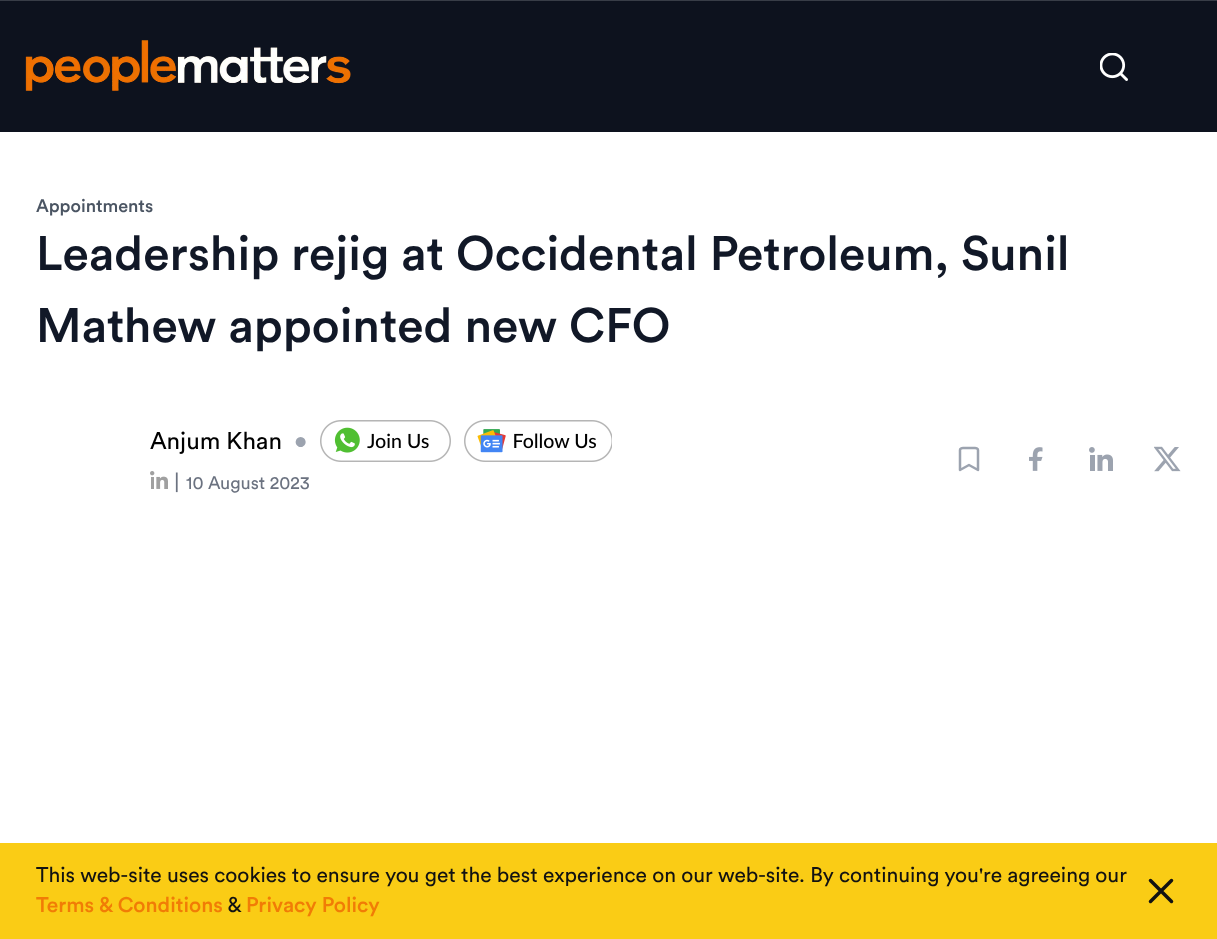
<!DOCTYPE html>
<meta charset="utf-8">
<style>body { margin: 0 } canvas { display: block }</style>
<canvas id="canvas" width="1217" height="939"></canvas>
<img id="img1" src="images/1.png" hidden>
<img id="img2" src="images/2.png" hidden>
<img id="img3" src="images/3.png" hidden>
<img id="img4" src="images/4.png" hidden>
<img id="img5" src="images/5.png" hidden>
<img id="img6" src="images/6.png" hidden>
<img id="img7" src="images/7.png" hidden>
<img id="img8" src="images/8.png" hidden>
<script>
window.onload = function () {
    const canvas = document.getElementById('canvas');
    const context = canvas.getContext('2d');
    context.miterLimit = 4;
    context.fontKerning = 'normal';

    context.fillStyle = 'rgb(255, 255, 255)';
    context.fillRect(0, 0, 1217, 939);
    context.fillStyle = 'rgb(56, 61, 71)';
    context.fillRect(0, 0, 1217, 1);
    context.fillStyle = 'rgb(13, 18, 30)';
    context.fillRect(0, 1, 1217, 131);
    context.drawImage(document.getElementById('img1'), 25, 40, 326, 51);
    context.drawImage(document.getElementById('img2'), 1100, 53, 28, 28);
    context.drawImage(document.getElementById('img3'), 320, 420, 131, 42);
    context.drawImage(document.getElementById('img4'), 464, 420, 148, 42);
    context.drawImage(document.getElementById('img5'), 150, 471, 18, 18);
    context.beginPath();
    context.moveTo(978, 470);
    context.lineTo(969, 465);
    context.lineTo(960, 470);
    context.lineTo(960, 450);
    context.bezierCurveTo(960, 449, 961.5, 448, 963, 448);
    context.lineTo(975, 448);
    context.bezierCurveTo(976.5, 448, 978, 449, 978, 450);
    context.closePath();
    context.strokeStyle = 'rgb(156, 163, 175)';
    context.lineWidth = 2.5;
    context.lineCap = 'round';
    context.lineJoin = 'round';
    context.stroke();
    context.drawImage(document.getElementById('img6'), 1029, 447, 14, 24);
    context.drawImage(document.getElementById('img7'), 1089, 447, 24, 24);
    context.drawImage(document.getElementById('img8'), 1154, 446, 27, 26);
    context.fillStyle = 'rgb(250, 204, 21)';
    context.fillRect(0, 843, 1217, 96);
    context.beginPath();
    context.moveTo(1171.5, 880.5);
    context.lineTo(1150.5, 901.5);
    context.moveTo(1150.5, 880.5);
    context.lineTo(1171.5, 901.5);
    context.strokeStyle = 'rgb(18, 18, 18)';
    context.lineWidth = 3.5;
    context.stroke();
    context.font = '500 18px Circular';
    context.fillStyle = 'rgb(75, 85, 99)';
    context.fillText('Appointments', 36, 212);
    context.font = '500 48px Circular';
    context.fillStyle = 'rgb(17, 24, 39)';
    context.fillText('Leadership rejig at Occidental Petroleum, Sunil', 36, 270);
    context.fillText('Mathew appointed new CFO', 36, 342);
    context.font = '24px Circular';
    context.fillStyle = 'rgb(0, 0, 0)';
    context.fillText('Anjum Khan', 150, 449);
    context.fillStyle = 'rgb(156, 163, 175)';
    context.fillText('•', 294, 449);
    context.font = '21px Circular';
    context.fillStyle = 'rgb(107, 114, 128)';
    context.fillText('|', 174, 489);
    context.font = '18px Circular';
    context.fillText('10 August 2023', 186, 489);
    context.font = '21px Circular';
    context.fillStyle = 'rgb(18, 18, 18)';
    context.fillText('This web-site uses cookies to ensure you get the best experience on our web-site. By continuing you\'re agreeing our', 36, 882);
    context.font = '500 21px Circular';
    context.fillStyle = 'rgb(241, 124, 6)';
    context.fillText('Terms & Conditions', 36, 912);
    context.font = '21px Circular';
    context.fillStyle = 'rgb(18, 18, 18)';
    context.fillText('&', 227, 912);
    context.font = '500 21px Circular';
    context.fillStyle = 'rgb(241, 124, 6)';
    context.fillText('Privacy Policy', 246, 912);
};
</script>
